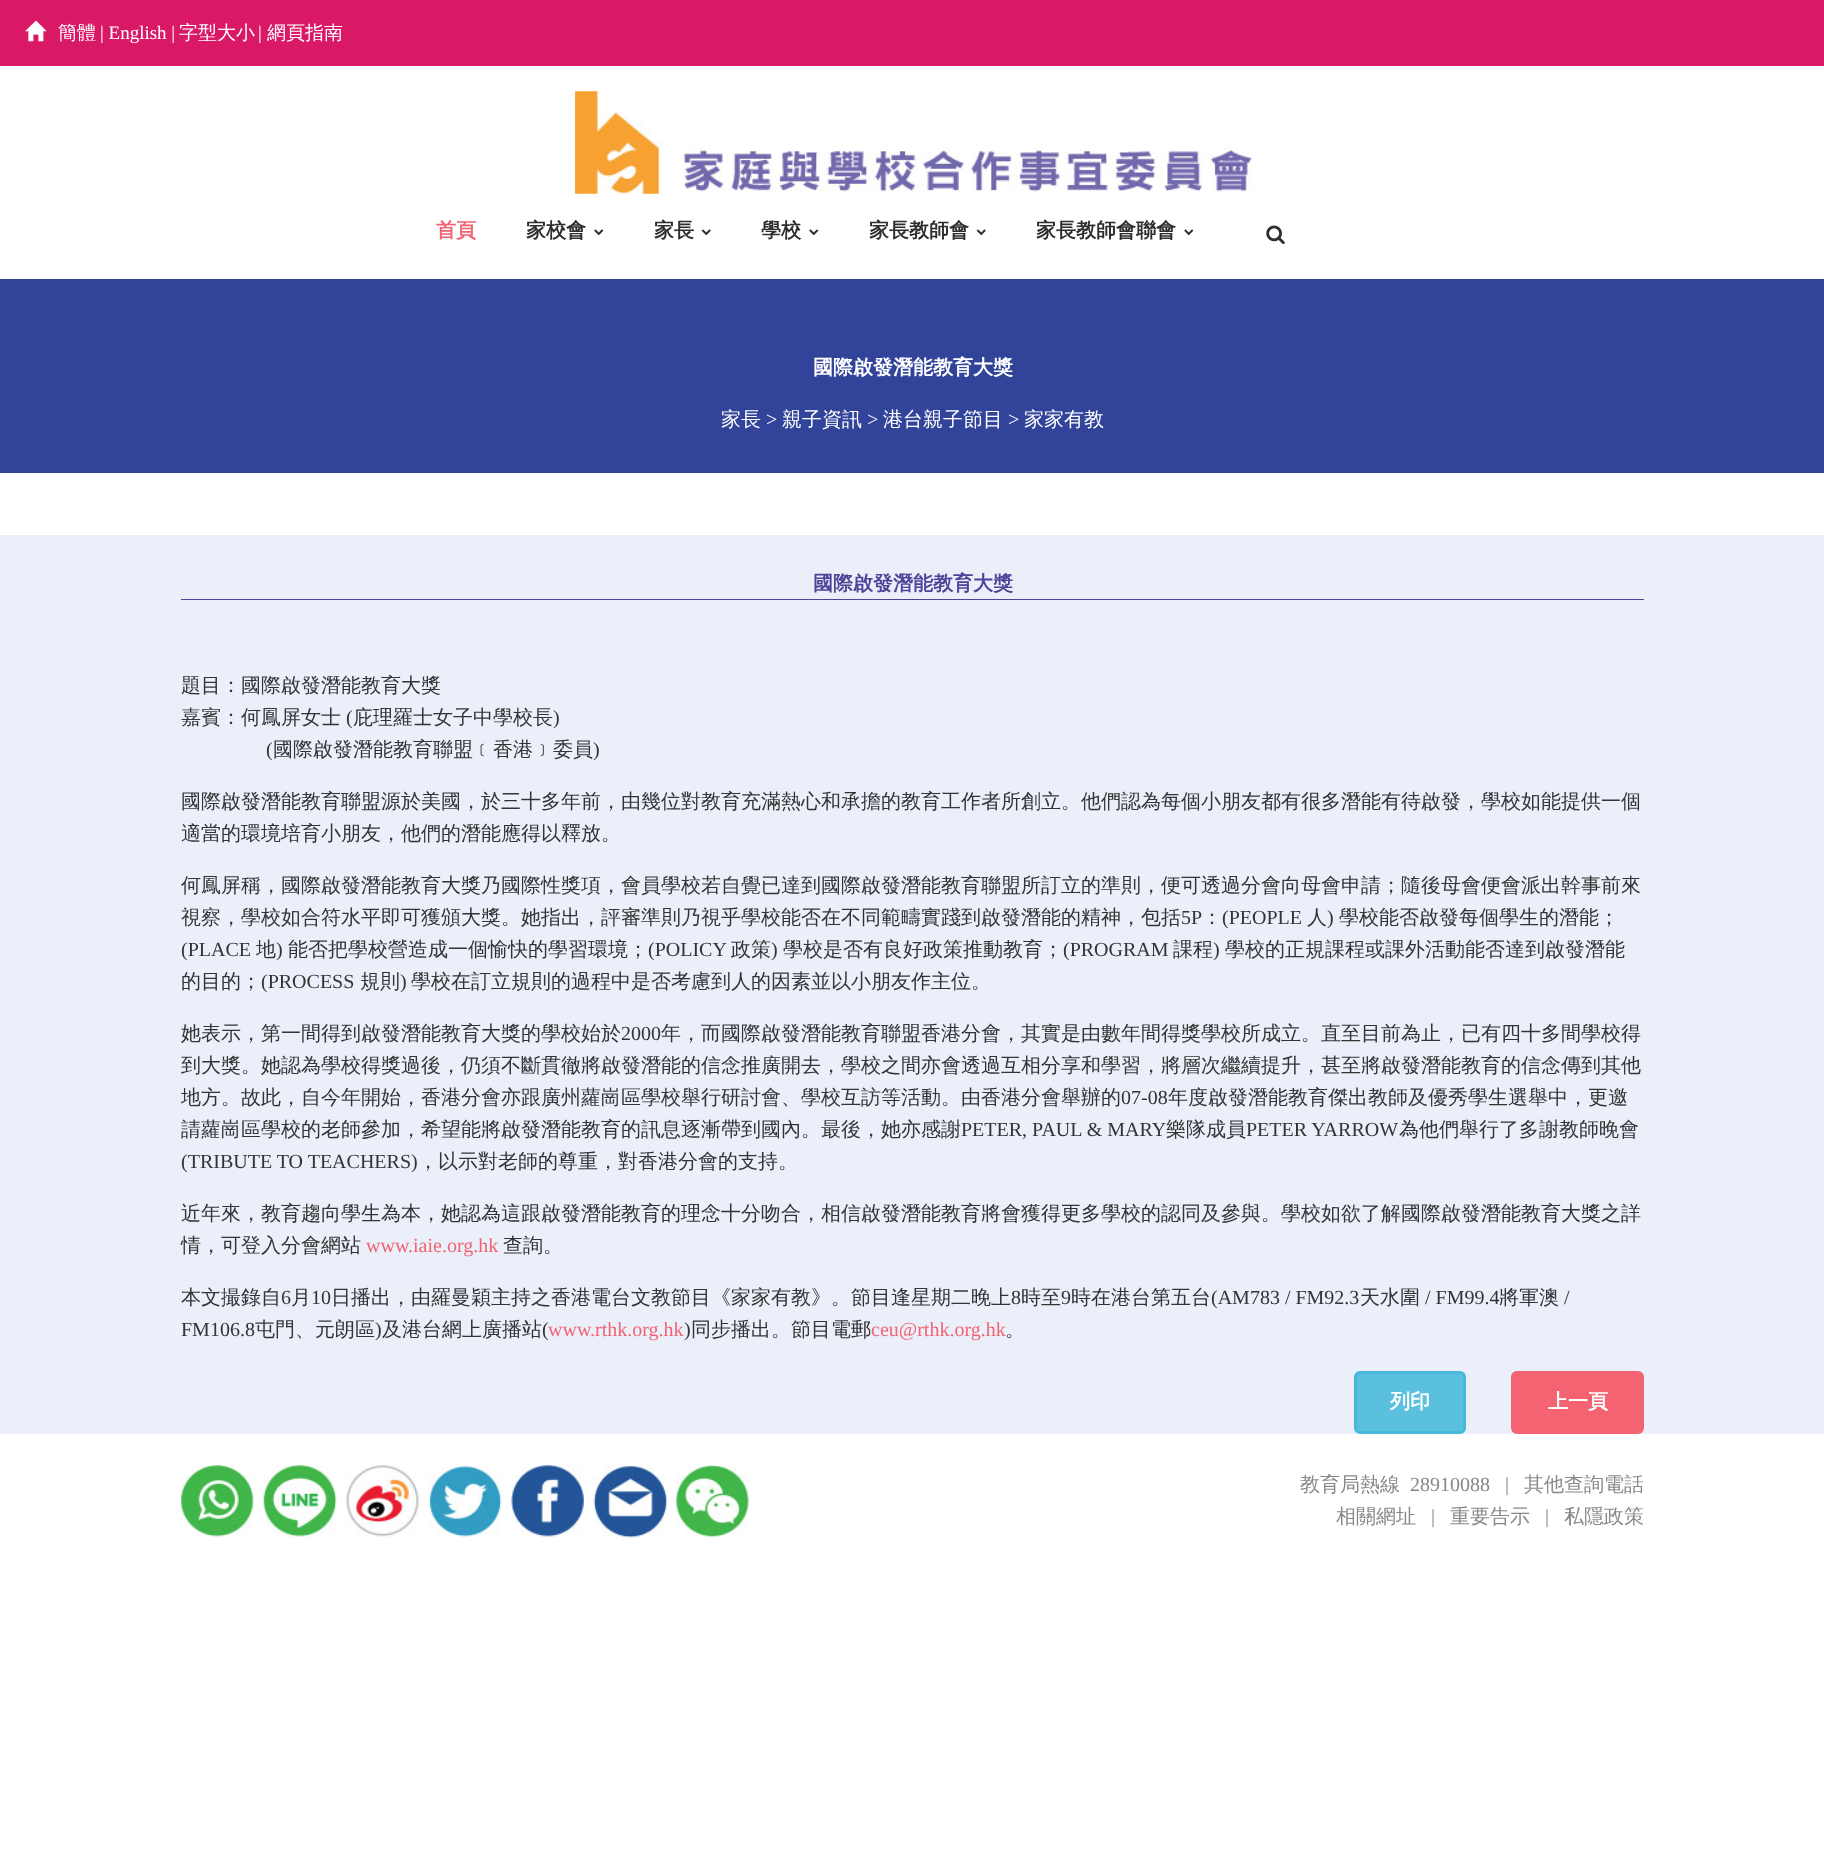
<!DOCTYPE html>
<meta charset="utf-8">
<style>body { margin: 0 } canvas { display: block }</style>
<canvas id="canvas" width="1824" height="1862"></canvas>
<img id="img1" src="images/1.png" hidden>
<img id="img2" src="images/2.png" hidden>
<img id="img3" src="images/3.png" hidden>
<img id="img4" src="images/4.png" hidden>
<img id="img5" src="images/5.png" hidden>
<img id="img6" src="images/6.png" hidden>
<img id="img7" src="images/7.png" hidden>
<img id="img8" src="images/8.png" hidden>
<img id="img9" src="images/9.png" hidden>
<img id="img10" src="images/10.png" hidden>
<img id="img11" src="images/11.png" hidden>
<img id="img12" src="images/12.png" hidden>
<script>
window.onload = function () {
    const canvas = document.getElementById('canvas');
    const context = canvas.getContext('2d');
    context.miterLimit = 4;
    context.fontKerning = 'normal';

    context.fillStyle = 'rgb(255, 255, 255)';
    context.fillRect(0, 0, 1824, 1862);
    context.fillStyle = 'rgb(217, 25, 101)';
    context.fillRect(0, 0, 1824, 66);
    context.drawImage(document.getElementById('img1'), 25, 20, 22, 22);
    context.drawImage(document.getElementById('img2'), 574, 91, 679, 103);
    context.drawImage(document.getElementById('img3'), 594, 229, 10, 7);
    context.drawImage(document.getElementById('img4'), 701, 229, 10, 7);
    context.drawImage(document.getElementById('img3'), 809, 229, 10, 7);
    context.drawImage(document.getElementById('img4'), 976, 229, 10, 7);
    context.drawImage(document.getElementById('img3'), 1184, 229, 10, 7);
    context.drawImage(document.getElementById('img5'), 1266, 225, 19, 20);
    context.fillStyle = 'rgb(50, 68, 154)';
    context.fillRect(0, 279, 1824, 194);
    context.fillStyle = 'rgb(234, 239, 249)';
    context.fillRect(0, 535, 1824, 899);
    context.fillStyle = 'rgb(77, 67, 152)';
    context.fillRect(181, 599, 1463, 1);
    context.fillStyle = 'rgb(91, 192, 222)';
    context.beginPath();
    context.roundRect(1355.5, 1372.5, 109, 60, 4.5);
    context.fill();
    context.strokeStyle = 'rgb(70, 184, 218)';
    context.lineWidth = 3;
    context.stroke();
    context.fillStyle = 'rgb(243, 99, 113)';
    context.beginPath();
    context.roundRect(1512.5, 1372.5, 130, 60, 4.5);
    context.fill();
    context.strokeStyle = 'rgb(243, 99, 113)';
    context.stroke();
    context.drawImage(document.getElementById('img6'), 181, 1465, 73, 73);
    context.drawImage(document.getElementById('img7'), 263, 1465, 74, 73);
    context.drawImage(document.getElementById('img8'), 346, 1465, 73, 72);
    context.drawImage(document.getElementById('img9'), 429, 1465, 73, 73);
    context.drawImage(document.getElementById('img10'), 511, 1465, 73, 72);
    context.drawImage(document.getElementById('img11'), 593, 1465, 74, 73);
    context.drawImage(document.getElementById('img12'), 676, 1465, 73, 72);
    context.font = '500 19px WenQuanYi Zen Hei';
    context.fillStyle = 'rgb(255, 255, 255)';
    context.fillText('簡體', 58, 39);
    context.font = '19px Liberation Serif';
    context.fillText('| English |', 100, 39);
    context.font = '500 19px WenQuanYi Zen Hei';
    context.fillText('字型大小', 179, 39);
    context.font = '19px Liberation Serif';
    context.fillText('|', 258, 39);
    context.font = '500 19px WenQuanYi Zen Hei';
    context.fillText('網頁指南', 267, 39);
    context.font = 'bold 20px WenQuanYi Zen Hei';
    context.fillStyle = 'rgb(243, 99, 113)';
    context.fillText('首頁', 436, 237);
    context.fillStyle = 'rgb(45, 46, 46)';
    context.fillText('家校會', 526, 237);
    context.fillText('家長', 654, 237);
    context.fillText('學校', 761, 237);
    context.fillText('家長教師會', 869, 237);
    context.fillText('家長教師會聯會', 1036, 237);
    context.fillStyle = 'rgb(255, 255, 255)';
    context.fillText('國際啟發潛能教育大獎', 813, 374);
    context.font = '500 20px WenQuanYi Zen Hei';
    context.fillText('家長', 721, 426);
    context.font = '20px Liberation Serif';
    context.fillText('>', 766, 426);
    context.font = '500 20px WenQuanYi Zen Hei';
    context.fillText('親子資訊', 782, 426);
    context.font = '20px Liberation Serif';
    context.fillText('>', 867, 426);
    context.font = '500 20px WenQuanYi Zen Hei';
    context.fillText('港台親子節目', 883, 426);
    context.font = '20px Liberation Serif';
    context.fillText('>', 1008, 426);
    context.font = '500 20px WenQuanYi Zen Hei';
    context.fillText('家家有教', 1024, 426);
    context.font = 'bold 20px WenQuanYi Zen Hei';
    context.fillStyle = 'rgb(77, 67, 152)';
    context.fillText('國際啟發潛能教育大獎', 813, 590);
    context.font = '500 20px WenQuanYi Zen Hei';
    context.fillStyle = 'rgb(51, 51, 51)';
    context.fillText('題目：國際啟發潛能教育大獎', 181, 692);
    context.fillText('嘉賓：何鳳屏女士', 181, 724);
    context.font = '20px Liberation Serif';
    context.fillText('(', 346, 724);
    context.font = '500 20px WenQuanYi Zen Hei';
    context.fillText('庇理羅士女子中學校長', 353, 724);
    context.font = '20px Liberation Serif';
    context.fillText(')', 553, 724);
    context.fillText('(', 266, 756);
    context.font = '500 20px WenQuanYi Zen Hei';
    context.fillText('國際啟發潛能教育聯盟﹝香港﹞委員', 273, 756);
    context.font = '20px Liberation Serif';
    context.fillText(')', 593, 756);
    context.font = '500 20px WenQuanYi Zen Hei';
    context.fillText('國際啟發潛能教育聯盟源於美國，於三十多年前，由幾位對教育充滿熱心和承擔的教育工作者所創立。他們認為每個小朋友都有很多潛能有待啟發，學校如能提供一個', 181, 808);
    context.fillText('適當的環境培育小朋友，他們的潛能應得以釋放。', 181, 840);
    context.fillText('何鳳屏稱，國際啟發潛能教育大獎乃國際性獎項，會員學校若自覺已達到國際啟發潛能教育聯盟所訂立的準則，便可透過分會向母會申請；隨後母會便會派出幹事前來', 181, 892);
    context.fillText('視察，學校如合符水平即可獲頒大獎。她指出，評審準則乃視乎學校能否在不同範疇實踐到啟發潛能的精神，包括', 181, 924);
    context.font = '20px Liberation Serif';
    context.fillText('5P', 1181, 924);
    context.font = '500 20px WenQuanYi Zen Hei';
    context.fillText('：', 1202, 924);
    context.font = '20px Liberation Serif';
    context.fillText('(PEOPLE', 1222, 924);
    context.font = '500 20px WenQuanYi Zen Hei';
    context.fillText('人', 1307, 924);
    context.font = '20px Liberation Serif';
    context.fillText(')', 1327, 924);
    context.font = '500 20px WenQuanYi Zen Hei';
    context.fillText('學校能否啟發每個學生的潛能；', 1339, 924);
    context.font = '20px Liberation Serif';
    context.fillText('(PLACE', 181, 956);
    context.font = '500 20px WenQuanYi Zen Hei';
    context.fillText('地', 256, 956);
    context.font = '20px Liberation Serif';
    context.fillText(')', 276, 956);
    context.font = '500 20px WenQuanYi Zen Hei';
    context.fillText('能否把學校營造成一個愉快的學習環境；', 288, 956);
    context.font = '20px Liberation Serif';
    context.fillText('(POLICY', 648, 956);
    context.font = '500 20px WenQuanYi Zen Hei';
    context.fillText('政策', 731, 956);
    context.font = '20px Liberation Serif';
    context.fillText(')', 771, 956);
    context.font = '500 20px WenQuanYi Zen Hei';
    context.fillText('學校是否有良好政策推動教育；', 783, 956);
    context.font = '20px Liberation Serif';
    context.fillText('(PROGRAM', 1063, 956);
    context.font = '500 20px WenQuanYi Zen Hei';
    context.fillText('課程', 1173, 956);
    context.font = '20px Liberation Serif';
    context.fillText(')', 1213, 956);
    context.font = '500 20px WenQuanYi Zen Hei';
    context.fillText('學校的正規課程或課外活動能否達到啟發潛能', 1225, 956);
    context.fillText('的目的；', 181, 988);
    context.font = '20px Liberation Serif';
    context.fillText('(PROCESS', 261, 988);
    context.font = '500 20px WenQuanYi Zen Hei';
    context.fillText('規則', 360, 988);
    context.font = '20px Liberation Serif';
    context.fillText(')', 400, 988);
    context.font = '500 20px WenQuanYi Zen Hei';
    context.fillText('學校在訂立規則的過程中是否考慮到人的因素並以小朋友作主位。', 411, 988);
    context.fillText('她表示，第一間得到啟發潛能教育大獎的學校始於', 181, 1040);
    context.font = '20px Liberation Serif';
    context.fillText('2000', 621, 1040);
    context.font = '500 20px WenQuanYi Zen Hei';
    context.fillText('年，而國際啟發潛能教育聯盟香港分會，其實是由數年間得獎學校所成立。直至目前為止，已有四十多間學校得', 661, 1040);
    context.fillText('到大獎。她認為學校得獎過後，仍須不斷貫徹將啟發潛能的信念推廣開去，學校之間亦會透過互相分享和學習，將層次繼續提升，甚至將啟發潛能教育的信念傳到其他', 181, 1072);
    context.fillText('地方。故此，自今年開始，香港分會亦跟廣州蘿崗區學校舉行研討會、學校互訪等活動。由香港分會舉辦的', 181, 1104);
    context.font = '20px Liberation Serif';
    context.fillText('07-08', 1121, 1104);
    context.font = '500 20px WenQuanYi Zen Hei';
    context.fillText('年度啟發潛能教育傑出教師及優秀學生選舉中，更邀', 1168, 1104);
    context.fillText('請蘿崗區學校的老師參加，希望能將啟發潛能教育的訊息逐漸帶到國內。最後，她亦感謝', 181, 1136);
    context.font = '20px Liberation Serif';
    context.fillText('PETER, PAUL & MARY', 961, 1136);
    context.font = '500 20px WenQuanYi Zen Hei';
    context.fillText('樂隊成員', 1166, 1136);
    context.font = '20px Liberation Serif';
    context.fillText('PETER YARROW', 1246, 1136);
    context.font = '500 20px WenQuanYi Zen Hei';
    context.fillText('為他們舉行了多謝教師晚會', 1399, 1136);
    context.font = '20px Liberation Serif';
    context.fillText('(TRIBUTE TO TEACHERS)', 181, 1168);
    context.font = '500 20px WenQuanYi Zen Hei';
    context.fillText('，以示對老師的尊重，對香港分會的支持。', 418, 1168);
    context.fillText('近年來，教育趨向學生為本，她認為這跟啟發潛能教育的理念十分吻合，相信啟發潛能教育將會獲得更多學校的認同及參與。學校如欲了解國際啟發潛能教育大獎之詳', 181, 1220);
    context.fillText('情，可登入分會網站', 181, 1252);
    context.font = '20px Liberation Serif';
    context.fillStyle = 'rgb(243, 99, 113)';
    context.fillText('www.iaie.org.hk', 366, 1252);
    context.font = '500 20px WenQuanYi Zen Hei';
    context.fillStyle = 'rgb(51, 51, 51)';
    context.fillText('查詢。', 503, 1252);
    context.fillText('本文撮錄自', 181, 1304);
    context.font = '20px Liberation Serif';
    context.fillText('6', 281, 1304);
    context.font = '500 20px WenQuanYi Zen Hei';
    context.fillText('月', 291, 1304);
    context.font = '20px Liberation Serif';
    context.fillText('10', 311, 1304);
    context.font = '500 20px WenQuanYi Zen Hei';
    context.fillText('日播出，由羅曼穎主持之香港電台文教節目《家家有教》。節目逢星期二晚上', 331, 1304);
    context.font = '20px Liberation Serif';
    context.fillText('8', 1011, 1304);
    context.font = '500 20px WenQuanYi Zen Hei';
    context.fillText('時至', 1021, 1304);
    context.font = '20px Liberation Serif';
    context.fillText('9', 1061, 1304);
    context.font = '500 20px WenQuanYi Zen Hei';
    context.fillText('時在港台第五台', 1071, 1304);
    context.font = '20px Liberation Serif';
    context.fillText('(AM783 / FM92.3', 1211, 1304);
    context.font = '500 20px WenQuanYi Zen Hei';
    context.fillText('天水圍', 1360, 1304);
    context.font = '20px Liberation Serif';
    context.fillText('/ FM99.4', 1425, 1304);
    context.font = '500 20px WenQuanYi Zen Hei';
    context.fillText('將軍澳', 1499, 1304);
    context.font = '20px Liberation Serif';
    context.fillText('/', 1564, 1304);
    context.fillText('FM106.8', 181, 1336);
    context.font = '500 20px WenQuanYi Zen Hei';
    context.fillText('屯門、元朗區', 255, 1336);
    context.font = '20px Liberation Serif';
    context.fillText(')', 375, 1336);
    context.font = '500 20px WenQuanYi Zen Hei';
    context.fillText('及港台網上廣播站', 382, 1336);
    context.font = '20px Liberation Serif';
    context.fillText('(', 542, 1336);
    context.fillStyle = 'rgb(243, 99, 113)';
    context.fillText('www.rthk.org.hk', 548, 1336);
    context.fillStyle = 'rgb(51, 51, 51)';
    context.fillText(')', 684, 1336);
    context.font = '500 20px WenQuanYi Zen Hei';
    context.fillText('同步播出。節目電郵', 691, 1336);
    context.font = '20px Liberation Serif';
    context.fillStyle = 'rgb(243, 99, 113)';
    context.fillText('ceu@rthk.org.hk', 871, 1336);
    context.font = '500 20px WenQuanYi Zen Hei';
    context.fillStyle = 'rgb(51, 51, 51)';
    context.fillText('。', 1005, 1336);
    context.font = 'bold 20px WenQuanYi Zen Hei';
    context.fillStyle = 'rgb(255, 255, 255)';
    context.fillText('列印', 1390, 1408);
    context.fillText('上一頁', 1548, 1408);
    context.font = '500 20px WenQuanYi Zen Hei';
    context.fillStyle = 'rgb(136, 136, 136)';
    context.fillText('教育局熱線', 1300, 1491);
    context.font = '20px Liberation Serif';
    context.fillText('28910088', 1410, 1491);
    context.fillText('|', 1505, 1491);
    context.font = '500 20px WenQuanYi Zen Hei';
    context.fillText('其他查詢電話', 1524, 1491);
    context.fillText('相關網址', 1336, 1523);
    context.font = '20px Liberation Serif';
    context.fillText('|', 1431, 1523);
    context.font = '500 20px WenQuanYi Zen Hei';
    context.fillText('重要告示', 1450, 1523);
    context.font = '20px Liberation Serif';
    context.fillText('|', 1545, 1523);
    context.font = '500 20px WenQuanYi Zen Hei';
    context.fillText('私隱政策', 1564, 1523);
};
</script>
